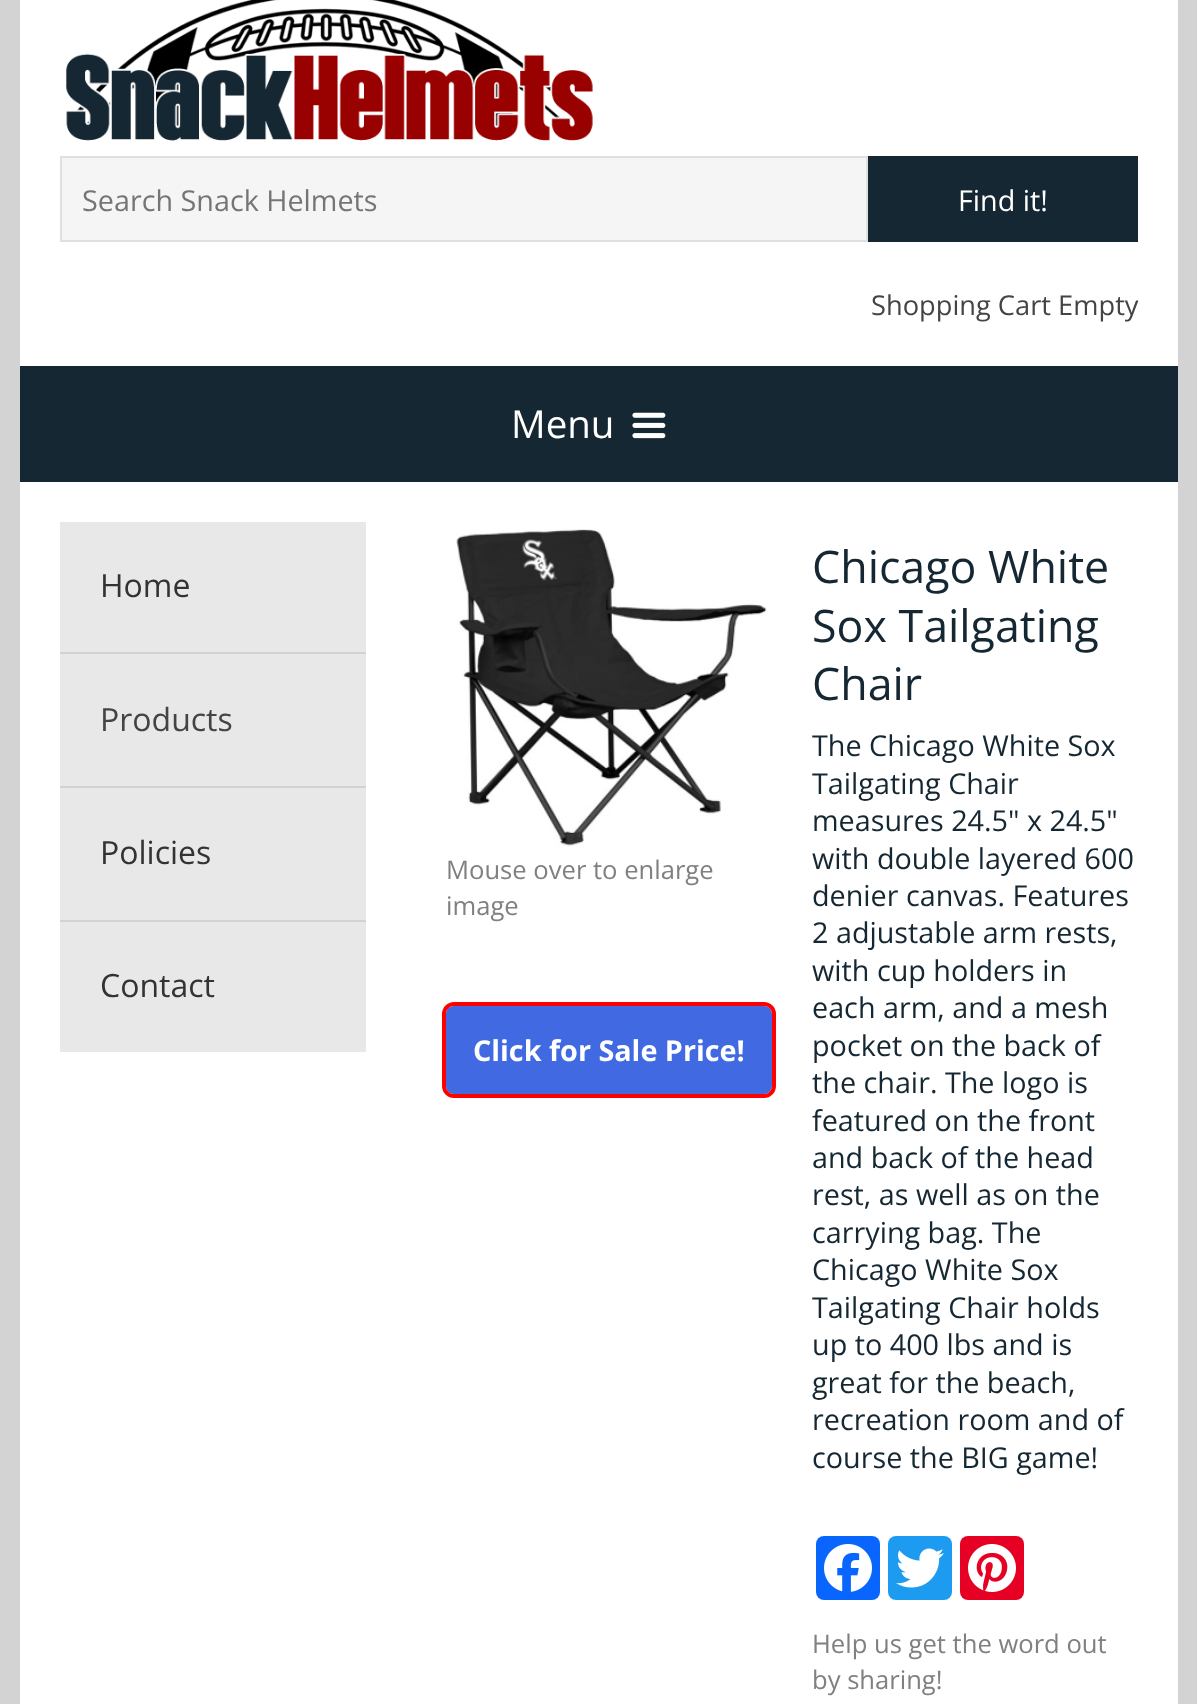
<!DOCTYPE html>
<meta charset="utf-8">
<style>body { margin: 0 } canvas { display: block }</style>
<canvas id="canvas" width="1197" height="1704"></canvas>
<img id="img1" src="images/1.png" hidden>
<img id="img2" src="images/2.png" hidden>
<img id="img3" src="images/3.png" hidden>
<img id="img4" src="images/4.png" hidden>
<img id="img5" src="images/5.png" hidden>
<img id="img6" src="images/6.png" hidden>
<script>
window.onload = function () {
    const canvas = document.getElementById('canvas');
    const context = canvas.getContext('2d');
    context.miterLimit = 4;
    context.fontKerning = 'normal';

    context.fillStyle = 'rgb(211, 211, 211)';
    context.fillRect(0, 0, 1197, 1704);
    context.fillStyle = 'rgb(255, 255, 255)';
    context.fillRect(20, 0, 1158, 366);
    context.drawImage(document.getElementById('img1'), 64, 0, 529, 141);
    context.fillStyle = 'rgb(245, 245, 245)';
    context.beginPath();
    context.rect(61, 157, 806, 84);
    context.fill();
    context.strokeStyle = 'rgb(224, 224, 224)';
    context.lineWidth = 2;
    context.stroke();
    context.fillStyle = 'rgb(21, 39, 50)';
    context.fillRect(868, 156, 270, 86);
    context.fillRect(20, 366, 1158, 116);
    context.drawImage(document.getElementById('img2'), 632, 412, 34, 27);
    context.fillStyle = 'rgb(255, 255, 255)';
    context.fillRect(20, 482, 1158, 1222);
    context.fillStyle = 'rgb(232, 232, 232)';
    context.fillRect(60, 522, 306, 530);
    context.fillStyle = 'rgb(210, 210, 210)';
    context.fillRect(60, 652, 306, 2);
    context.fillRect(60, 786, 306, 2);
    context.fillRect(60, 920, 306, 2);
    context.drawImage(document.getElementById('img3'), 456, 529, 311, 317);
    context.fillStyle = 'rgb(65, 105, 225)';
    context.beginPath();
    context.roundRect(446, 1006, 326, 88, 8);
    context.fill();
    context.beginPath();
    context.roundRect(444, 1004, 330, 92, 10);
    context.strokeStyle = 'rgb(255, 0, 0)';
    context.lineWidth = 4;
    context.stroke();
    context.fillStyle = 'rgb(8, 102, 255)';
    context.beginPath();
    context.roundRect(816, 1536, 64, 64, 8);
    context.fill();
    context.drawImage(document.getElementById('img4'), 824, 1544, 48, 48);
    context.fillStyle = 'rgb(29, 155, 240)';
    context.beginPath();
    context.roundRect(888, 1536, 64, 64, 8);
    context.fill();
    context.drawImage(document.getElementById('img5'), 896, 1548, 48, 40);
    context.fillStyle = 'rgb(230, 0, 35)';
    context.beginPath();
    context.roundRect(960, 1536, 64, 64, 8);
    context.fill();
    context.drawImage(document.getElementById('img6'), 968, 1544, 48, 48);
    context.font = '28.75px Open Sans';
    context.fillStyle = 'rgb(117, 117, 117)';
    context.fillText('Search Snack Helmets', 82, 211);
    context.fillStyle = 'rgb(255, 255, 255)';
    context.fillText('Find it!', 958, 211);
    context.font = '27.25px Open Sans';
    context.fillStyle = 'rgb(68, 68, 68)';
    context.fillText('Shopping Cart Empty', 871, 315);
    context.font = '38.5px Open Sans';
    context.fillStyle = 'rgb(255, 255, 255)';
    context.fillText('Menu', 511, 438);
    context.font = '32px Open Sans';
    context.fillStyle = 'rgb(51, 51, 51)';
    context.fillText('Home', 100, 597);
    context.fillStyle = 'rgb(68, 68, 68)';
    context.fillText('Products', 100, 731);
    context.fillStyle = 'rgb(51, 51, 51)';
    context.fillText('Policies', 100, 864);
    context.fillText('Contact', 100, 997);
    context.font = '25.6px Open Sans';
    context.fillStyle = 'rgb(128, 128, 128)';
    context.fillText('Mouse over to enlarge', 446, 879);
    context.fillText('image', 446, 915);
    context.font = 'bold 28.75px Open Sans';
    context.fillStyle = 'rgb(255, 255, 255)';
    context.fillText('Click for Sale Price!', 473, 1061);
    context.font = '44.75px Open Sans';
    context.fillStyle = 'rgb(21, 39, 50)';
    context.fillText('Chicago White', 812, 583);
    context.fillText('Sox Tailgating', 812, 642);
    context.fillText('Chair', 812, 700);
    context.font = '28.75px Open Sans';
    context.fillText('The Chicago White Sox', 812, 756);
    context.fillText('Tailgating Chair', 812, 794);
    context.fillText('measures 24.5" x 24.5"', 812, 831);
    context.fillText('with double layered 600', 812, 869);
    context.fillText('denier canvas. Features', 812, 906);
    context.fillText('2 adjustable arm rests,', 812, 943);
    context.fillText('with cup holders in', 812, 981);
    context.fillText('each arm, and a mesh', 812, 1018);
    context.fillText('pocket on the back of', 812, 1056);
    context.fillText('the chair. The logo is', 812, 1093);
    context.fillText('featured on the front', 812, 1131);
    context.fillText('and back of the head', 812, 1168);
    context.fillText('rest, as well as on the', 812, 1205);
    context.fillText('carrying bag. The', 812, 1243);
    context.fillText('Chicago White Sox', 812, 1280);
    context.fillText('Tailgating Chair holds', 812, 1318);
    context.fillText('up to 400 lbs and is', 812, 1355);
    context.fillText('great for the beach,', 812, 1393);
    context.fillText('recreation room and of', 812, 1430);
    context.fillText('course the BIG game!', 812, 1468);
    context.font = '25.6px Open Sans';
    context.fillStyle = 'rgb(128, 128, 128)';
    context.fillText('Help us get the word out', 812, 1653);
    context.fillText('by sharing!', 812, 1689);
};
</script>
